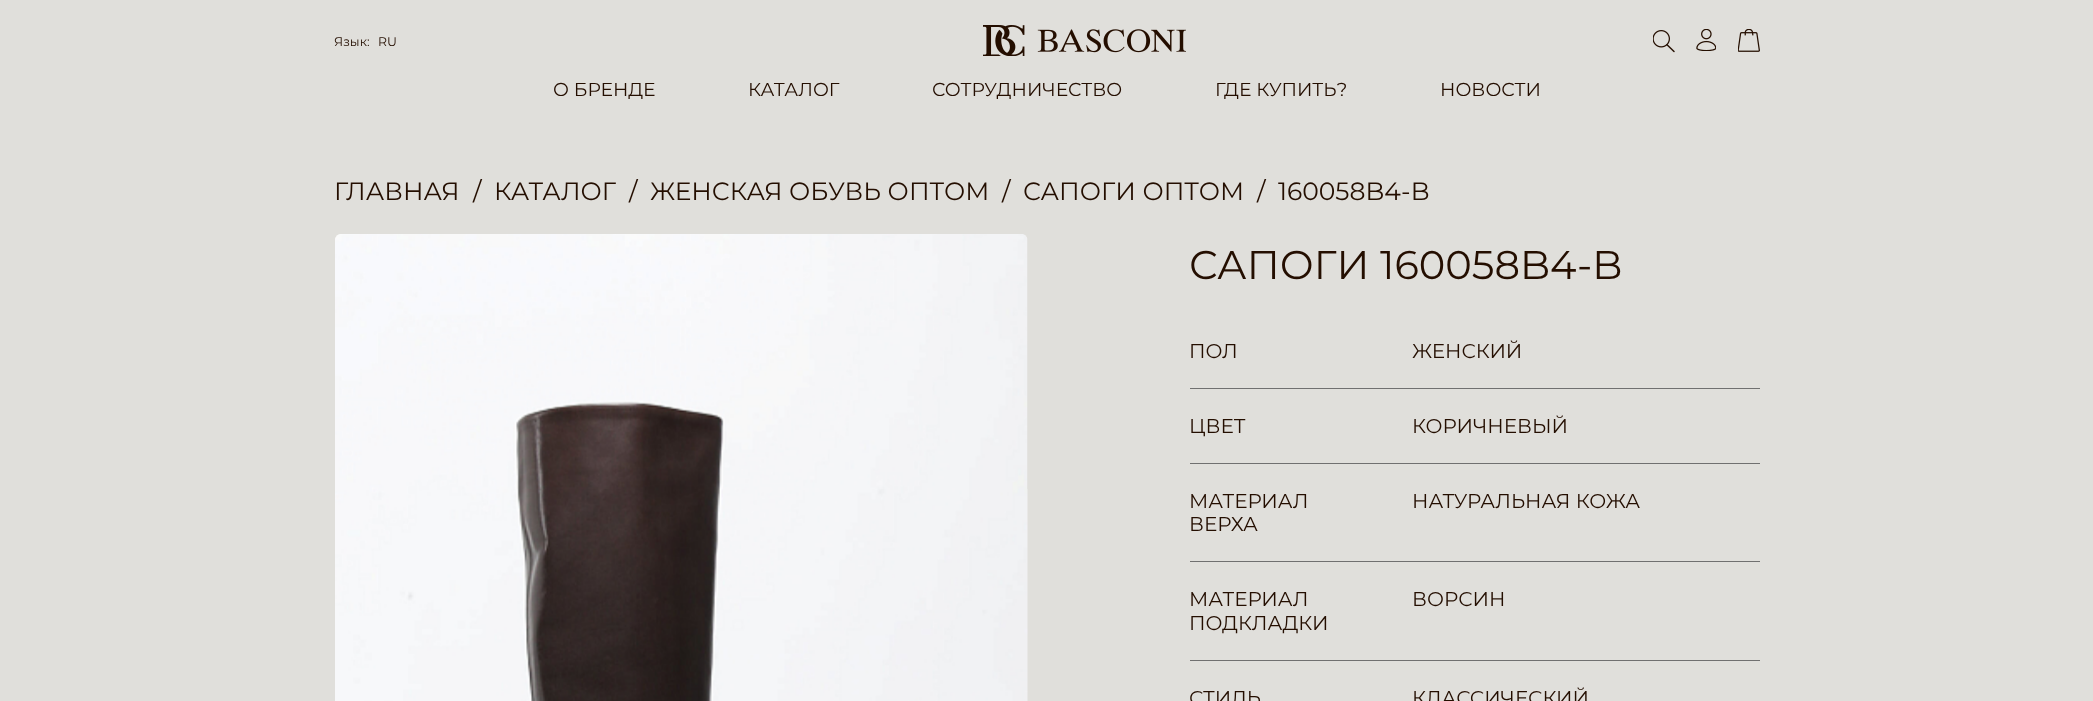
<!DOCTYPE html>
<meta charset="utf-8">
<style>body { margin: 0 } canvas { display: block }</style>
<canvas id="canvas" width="2093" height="701"></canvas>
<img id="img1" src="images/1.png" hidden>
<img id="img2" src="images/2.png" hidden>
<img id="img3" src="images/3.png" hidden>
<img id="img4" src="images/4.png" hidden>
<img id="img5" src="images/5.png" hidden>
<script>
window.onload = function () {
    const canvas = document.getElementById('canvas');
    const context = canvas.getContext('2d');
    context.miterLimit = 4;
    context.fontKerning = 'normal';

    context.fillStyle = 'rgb(224, 223, 219)';
    context.fillRect(0, 0, 2093, 701);
    context.drawImage(document.getElementById('img1'), 983, 25, 203, 31);
    context.drawImage(document.getElementById('img2'), 1653, 30, 22, 23);
    context.drawImage(document.getElementById('img3'), 1696, 29, 20, 22);
    context.drawImage(document.getElementById('img4'), 1738, 29, 22, 23);
    context.drawImage(document.getElementById('img5'), 335, 234, 693, 467);
    context.fillStyle = 'rgb(112, 112, 112)';
    context.fillRect(1190, 388, 570, 1);
    context.fillRect(1190, 463, 570, 1);
    context.fillRect(1190, 561, 570, 1);
    context.fillRect(1190, 660, 570, 1);
    context.font = '12.5px Montserrat';
    context.fillStyle = 'rgb(36, 14, 0)';
    context.fillText('Язык:', 334, 46);
    context.fillText('RU', 378, 46);
    context.font = '18.75px Montserrat';
    context.fillText('О БРЕНДЕ', 553, 96);
    context.fillText('КАТАЛОГ', 748, 96);
    context.fillText('СОТРУДНИЧЕСТВО', 932, 96);
    context.fillText('ГДЕ КУПИТЬ?', 1215, 96);
    context.fillText('НОВОСТИ', 1440, 96);
    context.font = '25px Montserrat';
    context.fillText('ГЛАВНАЯ', 334, 200);
    context.fillText('/', 473, 200);
    context.fillText('КАТАЛОГ', 494, 200);
    context.fillText('/', 629, 200);
    context.fillText('ЖЕНСКАЯ ОБУВЬ ОПТОМ', 650, 200);
    context.fillText('/', 1002, 200);
    context.fillText('САПОГИ ОПТОМ', 1023, 200);
    context.fillText('/', 1257, 200);
    context.fillText('160058B4-B', 1278, 200);
    context.font = '40px Montserrat';
    context.fillText('САПОГИ 160058B4-B', 1189, 279);
    context.font = '20px Montserrat';
    context.fillText('ПОЛ', 1189, 358);
    context.fillText('ЖЕНСКИЙ', 1412, 358);
    context.fillText('ЦВЕТ', 1189, 433);
    context.fillText('КОРИЧНЕВЫЙ', 1412, 433);
    context.fillText('МАТЕРИАЛ', 1189, 508);
    context.fillText('ВЕРХА', 1189, 531);
    context.fillText('НАТУРАЛЬНАЯ КОЖА', 1412, 508);
    context.fillText('МАТЕРИАЛ', 1189, 606);
    context.fillText('ПОДКЛАДКИ', 1189, 630);
    context.fillText('ВОРСИН', 1412, 606);
    context.fillText('СТИЛЬ', 1189, 705);
    context.fillText('КЛАССИЧЕСКИЙ', 1412, 705);
};
</script>
